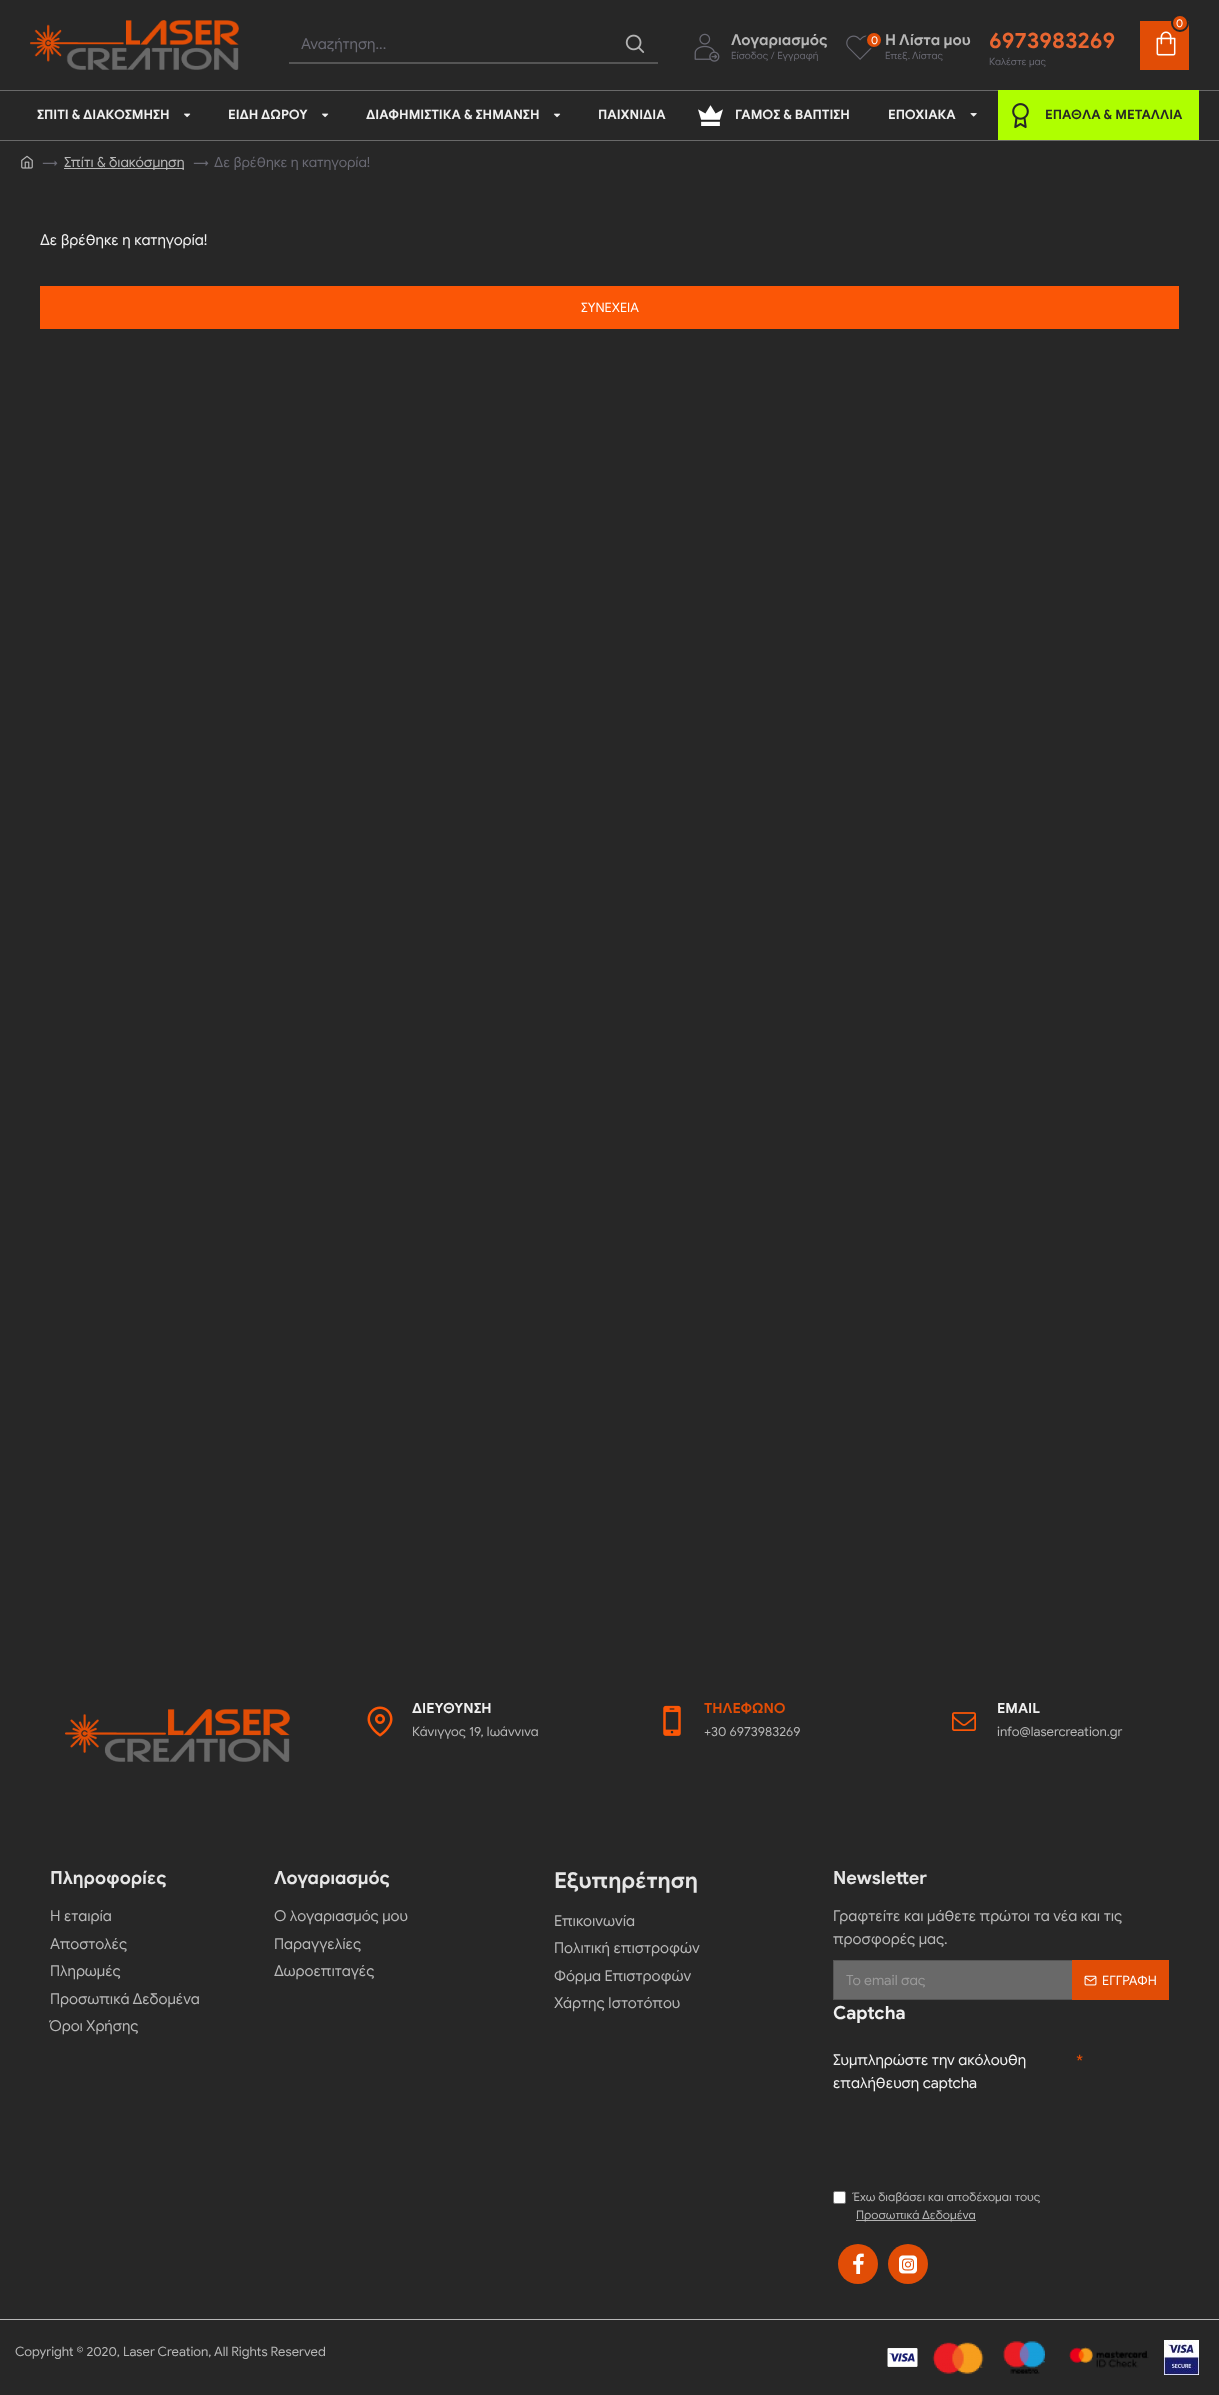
<!DOCTYPE html>
<meta charset="utf-8">
<style>body { margin: 0 } canvas { display: block }</style>
<canvas id="canvas" width="1219" height="2395"></canvas>
<img id="img1" src="images/1.png" hidden>
<img id="img2" src="images/2.png" hidden>
<img id="img3" src="images/3.png" hidden>
<img id="img4" src="images/4.png" hidden>
<img id="img5" src="images/5.png" hidden>
<img id="img6" src="images/6.png" hidden>
<img id="img7" src="images/7.png" hidden>
<img id="img8" src="images/8.png" hidden>
<img id="img9" src="images/9.png" hidden>
<img id="img10" src="images/10.png" hidden>
<img id="img11" src="images/11.png" hidden>
<img id="img12" src="images/12.png" hidden>
<img id="img13" src="images/13.png" hidden>
<img id="img14" src="images/14.png" hidden>
<img id="img15" src="images/15.png" hidden>
<img id="img16" src="images/16.png" hidden>
<img id="img17" src="images/17.png" hidden>
<img id="img18" src="images/18.png" hidden>
<img id="img19" src="images/19.png" hidden>
<img id="img20" src="images/20.png" hidden>
<img id="img21" src="images/21.png" hidden>
<img id="img22" src="images/22.png" hidden>
<img id="img23" src="images/23.png" hidden>
<img id="img24" src="images/24.png" hidden>
<script>
window.onload = function () {
    const canvas = document.getElementById('canvas');
    const context = canvas.getContext('2d');
    context.miterLimit = 4;
    context.fontKerning = 'normal';

    context.fillStyle = 'rgb(39, 39, 39)';
    context.fillRect(0, 0, 1219, 2395);
    context.fillStyle = 'rgb(105, 105, 105)';
    context.fillRect(0, 140, 1219, 1);
    context.drawImage(document.getElementById('img1'), 30, 20, 209, 50);
    context.fillStyle = 'rgb(85, 85, 85)';
    context.fillRect(289, 62, 369, 2);
    context.drawImage(document.getElementById('img2'), 625, 34, 20, 19);
    context.fillStyle = 'rgb(225, 77, 6)';
    context.fillRect(1140, 21, 49, 49);
    context.drawImage(document.getElementById('img3'), 1156, 31, 20, 25);
    context.beginPath();
    context.arc(1180, 23, 8, 0, 2 * Math.PI);
    context.fill();
    context.strokeStyle = 'rgb(39, 39, 39)';
    context.lineWidth = 2;
    context.stroke();
    context.drawImage(document.getElementById('img4'), 694, 33, 26, 29);
    context.drawImage(document.getElementById('img5'), 846, 35, 26, 25);
    context.beginPath();
    context.arc(874, 40, 8, 0, 2 * Math.PI);
    context.fill();
    context.stroke();
    context.fillStyle = 'rgb(105, 105, 105)';
    context.fillRect(0, 90, 1219, 1);
    context.drawImage(document.getElementById('img6'), 184, 113, 7, 5);
    context.drawImage(document.getElementById('img7'), 322, 113, 7, 5);
    context.drawImage(document.getElementById('img8'), 553, 113, 8, 5);
    context.drawImage(document.getElementById('img9'), 698, 105, 25, 21);
    context.drawImage(document.getElementById('img10'), 970, 113, 7, 4);
    context.fillStyle = 'rgb(175, 255, 0)';
    context.fillRect(998, 90, 201, 50);
    context.drawImage(document.getElementById('img11'), 1012, 103, 17, 26);
    context.drawImage(document.getElementById('img12'), 21, 155, 12, 14);
    context.fillStyle = 'rgb(183, 183, 183)';
    context.fillRect(64, 168, 120, 1);
    context.fillStyle = 'rgb(251, 86, 6)';
    context.fillRect(40, 286, 1139, 43);
    context.drawImage(document.getElementById('img13'), 65, 1709, 225, 53);
    context.drawImage(document.getElementById('img14'), 367, 1706, 26, 31);
    context.drawImage(document.getElementById('img15'), 663, 1705, 18, 31);
    context.drawImage(document.getElementById('img16'), 952, 1712, 24, 19);
    context.fillStyle = 'rgb(105, 105, 105)';
    context.fillRect(834, 1961, 238, 38);
    context.strokeStyle = 'rgb(85, 85, 85)';
    context.lineWidth = 1;
    context.strokeRect(833.5, 1960.5, 335, 39);
    context.fillStyle = 'rgb(225, 77, 6)';
    context.fillRect(1072, 1960, 97, 40);
    context.drawImage(document.getElementById('img17'), 1084, 1975, 13, 11);
    context.fillStyle = 'rgb(255, 255, 255)';
    context.beginPath();
    context.roundRect(833.5, 2191.5, 12, 12, 1.5);
    context.fill();
    context.strokeStyle = 'rgb(118, 118, 118)';
    context.stroke();
    context.fillStyle = 'rgb(179, 179, 179)';
    context.fillRect(856, 2220, 120, 1);
    context.fillStyle = 'rgb(225, 77, 6)';
    context.beginPath();
    context.arc(858, 2264, 20, 0, 2 * Math.PI);
    context.fill();
    context.drawImage(document.getElementById('img18'), 853, 2253, 11, 21);
    context.beginPath();
    context.arc(908, 2264, 20, 0, 2 * Math.PI);
    context.fill();
    context.drawImage(document.getElementById('img19'), 899, 2255, 18, 19);
    context.fillStyle = 'rgb(183, 183, 183)';
    context.fillRect(0, 2319, 1219, 1);
    context.drawImage(document.getElementById('img20'), 887, 2348, 31, 19);
    context.drawImage(document.getElementById('img21'), 932, 2342, 52, 32);
    context.drawImage(document.getElementById('img22'), 1003, 2341, 42, 33);
    context.drawImage(document.getElementById('img23'), 1069, 2347, 80, 21);
    context.drawImage(document.getElementById('img24'), 1164, 2340, 35, 35);
    context.font = '15px Google Sans';
    context.fillStyle = 'rgb(105, 105, 115)';
    context.fillText('Αναζήτηση...', 301, 49);
    context.font = '11px Google Sans';
    context.fillStyle = 'rgb(255, 255, 255)';
    context.fillText('0', 1176, 27);
    context.font = 'bold 15px Google Sans';
    context.fillStyle = 'rgb(183, 183, 183)';
    context.fillText('Λογαριασμός', 731, 45);
    context.save();
    context.beginPath();
    context.rect(731, 29, 96, 32);
    context.clip();
    context.font = '10px Google Sans';
    context.fillStyle = 'rgb(105, 105, 115)';
    context.fillText('Είσοδος / Εγγραφή', 731, 59);
    context.restore();
    context.font = '11px Google Sans';
    context.fillStyle = 'rgb(255, 255, 255)';
    context.fillText('0', 871, 44);
    context.font = 'bold 15px Google Sans';
    context.fillStyle = 'rgb(183, 183, 183)';
    context.fillText('Η Λίστα μου', 885, 45);
    context.font = '10px Google Sans';
    context.fillStyle = 'rgb(105, 105, 115)';
    context.fillText('Επεξ. Λίστας', 885, 59);
    context.font = 'bold 22px Google Sans';
    context.fillStyle = 'rgb(233, 102, 49)';
    context.fillText('6973983269', 989, 48);
    context.font = '10px Google Sans';
    context.fillStyle = 'rgb(105, 105, 115)';
    context.fillText('Καλέστε μας', 989, 65);
    context.font = 'bold 13px Google Sans';
    context.fillStyle = 'rgb(240, 240, 240)';
    context.fillText('ΣΠΙΤΙ & ΔΙΑΚΟΣΜΗΣΗ', 37, 119);
    context.fillText('ΕΙΔΗ ΔΩΡΟΥ', 228, 119);
    context.fillText('ΔΙΑΦΗΜΙΣΤΙΚΑ & ΣΗΜΑΝΣΗ', 366, 119);
    context.fillText('ΠΑΙΧΝΙΔΙΑ', 598, 119);
    context.fillText('ΓΑΜΟΣ & ΒΑΠΤΙΣΗ', 735, 119);
    context.fillText('ΕΠΟΧΙΑΚΑ', 888, 119);
    context.fillStyle = 'rgb(39, 39, 39)';
    context.fillText('ΕΠΑΘΛΑ & ΜΕΤΑΛΛΙΑ', 1045, 119);
    context.font = '15px Google Sans';
    context.fillStyle = 'rgb(105, 105, 115)';
    context.fillText('→', 42, 168);
    context.font = '14px Google Sans';
    context.fillStyle = 'rgb(183, 183, 183)';
    context.fillText('Σπίτι & διακόσμηση', 64, 167);
    context.font = '15px Google Sans';
    context.fillStyle = 'rgb(105, 105, 115)';
    context.fillText('→', 193, 168);
    context.font = '14px Google Sans';
    context.fillText('Δε βρέθηκε η κατηγορία!', 214, 167);
    context.font = '15px Google Sans';
    context.fillStyle = 'rgb(240, 240, 240)';
    context.fillText('Δε βρέθηκε η κατηγορία!', 40, 245);
    context.font = '13px Google Sans';
    context.fillStyle = 'rgb(255, 255, 255)';
    context.fillText('ΣΥΝΕΧΕΙΑ', 581, 312);
    context.font = 'bold 14px Google Sans';
    context.fillStyle = 'rgb(240, 240, 240)';
    context.fillText('ΔΙΕΥΘΥΝΣΗ', 412, 1713);
    context.font = '13px Google Sans';
    context.fillStyle = 'rgb(183, 183, 183)';
    context.fillText('Κάνιγγος 19, Ιωάννινα', 412, 1736);
    context.font = 'bold 14px Google Sans';
    context.fillStyle = 'rgb(225, 77, 6)';
    context.fillText('ΤΗΛΕΦΩΝΟ', 704, 1713);
    context.font = '13px Google Sans';
    context.fillStyle = 'rgb(183, 183, 183)';
    context.fillText('+30 6973983269', 704, 1736);
    context.font = 'bold 14px Google Sans';
    context.fillStyle = 'rgb(240, 240, 240)';
    context.fillText('EMAIL', 997, 1713);
    context.font = '13px Google Sans';
    context.fillStyle = 'rgb(183, 183, 183)';
    context.fillText('info@lasercreation.gr', 997, 1736);
    context.font = 'bold 18px Google Sans';
    context.fillStyle = 'rgb(230, 230, 230)';
    context.fillText('Πληροφορίες', 50, 1884);
    context.font = '15px Google Sans';
    context.fillStyle = 'rgb(183, 183, 183)';
    context.fillText('Η εταιρία', 50, 1921);
    context.fillText('Αποστολές', 50, 1949);
    context.fillText('Πληρωμές', 50, 1976);
    context.fillText('Προσωπικά Δεδομένα', 50, 2004);
    context.fillText('Όροι Χρήσης', 50, 2031);
    context.font = 'bold 18px Google Sans';
    context.fillStyle = 'rgb(230, 230, 230)';
    context.fillText('Λογαριασμός', 274, 1884);
    context.font = '15px Google Sans';
    context.fillStyle = 'rgb(183, 183, 183)';
    context.fillText('Ο λογαριασμός μου', 274, 1921);
    context.fillText('Παραγγελίες', 274, 1949);
    context.fillText('Δωροεπιταγές', 274, 1976);
    context.font = 'bold 22px Google Sans';
    context.fillStyle = 'rgb(230, 230, 230)';
    context.fillText('Εξυπηρέτηση', 554, 1888);
    context.font = '15px Google Sans';
    context.fillStyle = 'rgb(183, 183, 183)';
    context.fillText('Επικοινωνία', 554, 1926);
    context.fillText('Πολιτική επιστροφών', 554, 1953);
    context.fillText('Φόρμα Επιστροφών', 554, 1981);
    context.fillText('Χάρτης Ιστοτόπου', 554, 2008);
    context.font = 'bold 18px Google Sans';
    context.fillStyle = 'rgb(230, 230, 230)';
    context.fillText('Newsletter', 833, 1884);
    context.font = '15px Google Sans';
    context.fillStyle = 'rgb(183, 183, 183)';
    context.fillText('Γραφτείτε και μάθετε πρώτοι τα νέα και τις', 833, 1921);
    context.fillText('προσφορές μας.', 833, 1944);
    context.font = '14px Google Sans';
    context.fillStyle = 'rgb(153, 153, 153)';
    context.fillText('Το email σας', 846, 1985);
    context.font = '13px Google Sans';
    context.fillStyle = 'rgb(255, 255, 255)';
    context.fillText('ΕΓΓΡΑΦΗ', 1102, 1985);
    context.font = 'bold 18px Google Sans';
    context.fillStyle = 'rgb(240, 240, 240)';
    context.fillText('Captcha', 833, 2019);
    context.font = '15px Google Sans';
    context.fillText('Συμπληρώστε την ακόλουθη', 833, 2065);
    context.font = '17px Google Sans';
    context.fillStyle = 'rgb(225, 77, 6)';
    context.fillText('*', 1076, 2067);
    context.font = '15px Google Sans';
    context.fillStyle = 'rgb(240, 240, 240)';
    context.fillText('επαλήθευση captcha', 833, 2088);
    context.font = '12px Google Sans';
    context.fillStyle = 'rgb(183, 183, 183)';
    context.fillText('Έχω διαβάσει και αποδέχομαι τους', 853, 2201);
    context.fillText('Προσωπικά Δεδομένα', 856, 2219);
    context.font = '13px Google Sans';
    context.fillText('Copyright © 2020, Laser Creation, All Rights Reserved', 15, 2356);
};
</script>
